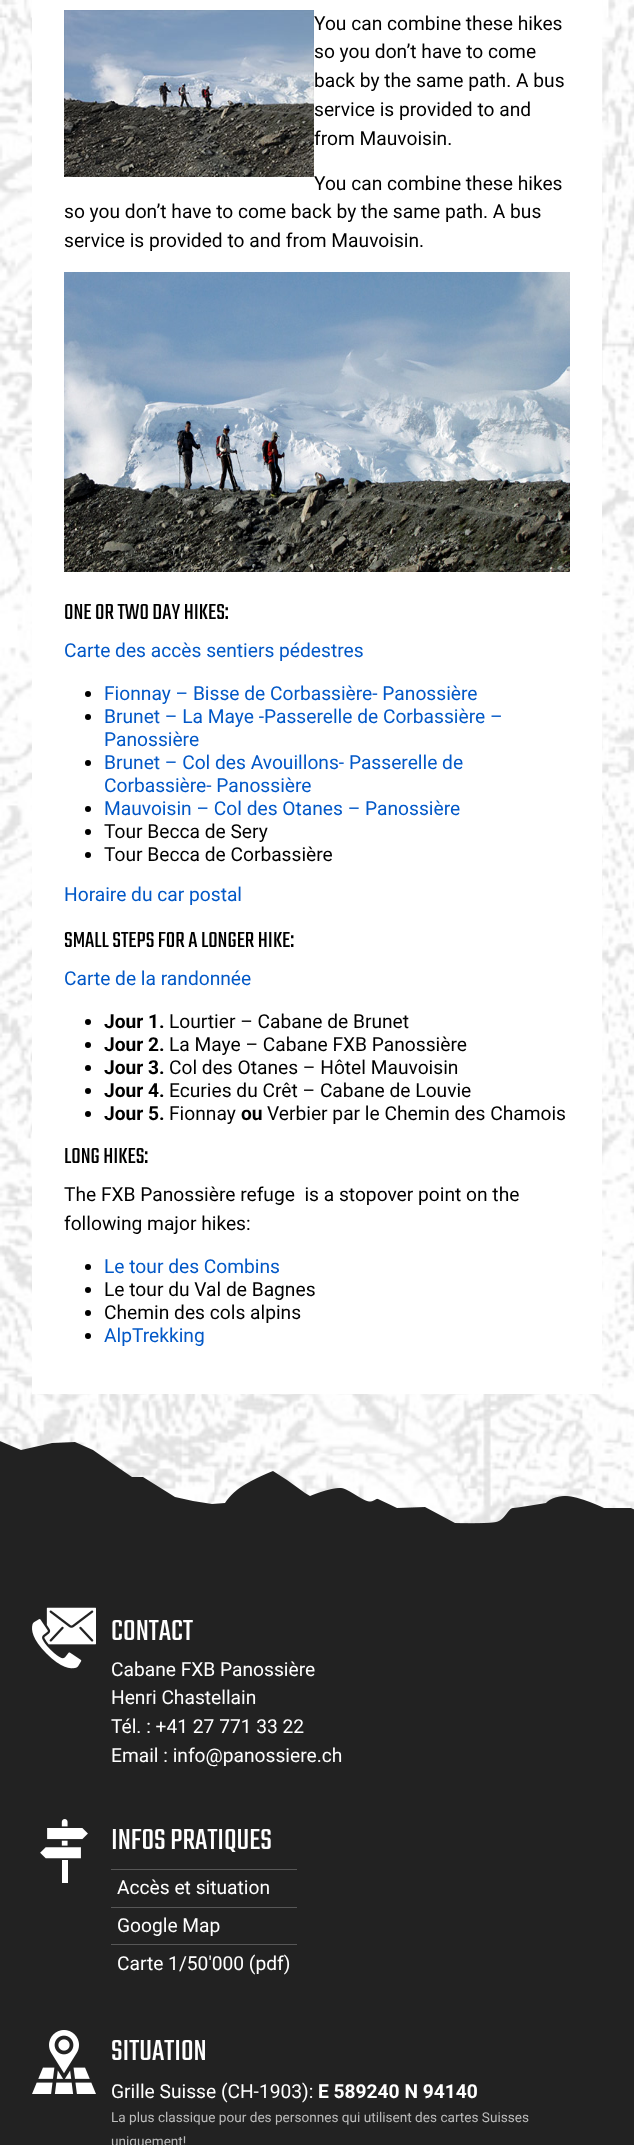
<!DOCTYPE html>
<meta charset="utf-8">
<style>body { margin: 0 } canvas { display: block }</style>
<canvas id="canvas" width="634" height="2145"></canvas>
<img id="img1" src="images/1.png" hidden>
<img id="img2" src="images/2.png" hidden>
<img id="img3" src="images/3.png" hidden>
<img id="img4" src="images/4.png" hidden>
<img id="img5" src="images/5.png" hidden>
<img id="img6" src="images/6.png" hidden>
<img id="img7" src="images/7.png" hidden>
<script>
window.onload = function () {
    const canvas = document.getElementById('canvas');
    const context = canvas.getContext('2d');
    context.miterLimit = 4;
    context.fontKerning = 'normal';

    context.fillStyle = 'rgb(255, 255, 255)';
    context.fillRect(0, 0, 634, 2145);
    context.drawImage(document.getElementById('img1'), 0, 0, 634, 1524);
    context.fillRect(32, 0, 570, 1394);
    context.drawImage(document.getElementById('img2'), 64, 10, 250, 167);
    context.drawImage(document.getElementById('img3'), 64, 272, 506, 300);
    context.fillStyle = 'rgb(0, 0, 0)';
    context.beginPath();
    context.arc(88, 694, 3, 0, 2 * Math.PI);
    context.fill();
    context.beginPath();
    context.arc(88, 717, 3, 0, 2 * Math.PI);
    context.fill();
    context.beginPath();
    context.arc(88, 763, 3, 0, 2 * Math.PI);
    context.fill();
    context.beginPath();
    context.arc(88, 809, 3, 0, 2 * Math.PI);
    context.fill();
    context.beginPath();
    context.arc(88, 832, 3, 0, 2 * Math.PI);
    context.fill();
    context.beginPath();
    context.arc(88, 855, 3, 0, 2 * Math.PI);
    context.fill();
    context.beginPath();
    context.arc(88, 1022, 3, 0, 2 * Math.PI);
    context.fill();
    context.beginPath();
    context.arc(88, 1045, 3, 0, 2 * Math.PI);
    context.fill();
    context.beginPath();
    context.arc(88, 1068, 3, 0, 2 * Math.PI);
    context.fill();
    context.beginPath();
    context.arc(88, 1091, 3, 0, 2 * Math.PI);
    context.fill();
    context.beginPath();
    context.arc(88, 1114, 3, 0, 2 * Math.PI);
    context.fill();
    context.beginPath();
    context.arc(88, 1267, 3, 0, 2 * Math.PI);
    context.fill();
    context.beginPath();
    context.arc(88, 1290, 3, 0, 2 * Math.PI);
    context.fill();
    context.beginPath();
    context.arc(88, 1313, 3, 0, 2 * Math.PI);
    context.fill();
    context.beginPath();
    context.arc(88, 1336, 3, 0, 2 * Math.PI);
    context.fill();
    context.fillStyle = 'rgb(34, 34, 34)';
    context.fillRect(0, 1606, 634, 539);
    context.drawImage(document.getElementById('img4'), 0, 1441, 634, 165);
    context.drawImage(document.getElementById('img5'), 32, 1607, 64, 62);
    context.drawImage(document.getElementById('img6'), 40, 1819, 48, 64);
    context.fillStyle = 'rgb(87, 87, 87)';
    context.fillRect(111, 1869, 186, 1);
    context.fillRect(111, 1907, 186, 1);
    context.fillRect(111, 1944, 186, 1);
    context.drawImage(document.getElementById('img7'), 32, 2030, 64, 64);
    context.font = '19.2px Roboto';
    context.fillStyle = 'rgb(0, 0, 0)';
    context.fillText('You can combine these hikes', 314, 30);
    context.fillText('so you don’t have to come', 314, 58);
    context.fillText('back by the same path. A bus', 314, 87);
    context.fillText('service is provided to and', 314, 116);
    context.fillText('from Mauvoisin.', 314, 145);
    context.fillText('You can combine these hikes', 314, 190);
    context.fillText('so you don’t have to come back by the same path. A bus', 64, 218);
    context.fillText('service is provided to and from Mauvoisin.', 64, 247);
    context.font = '24px Teko';
    context.fillText('ONE OR TWO DAY HIKES:', 64, 619);
    context.font = '19.2px Roboto';
    context.fillStyle = 'rgb(2, 88, 199)';
    context.fillText('Carte des accès sentiers pédestres', 64, 657);
    context.fillText('Fionnay – Bisse de Corbassière- Panossière', 104, 700);
    context.fillText('Brunet – La Maye -Passerelle de Corbassière –', 104, 723);
    context.fillText('Panossière', 104, 746);
    context.fillText('Brunet – Col des Avouillons- Passerelle de', 104, 769);
    context.fillText('Corbassière- Panossière', 104, 792);
    context.fillText('Mauvoisin – Col des Otanes – Panossière', 104, 815);
    context.fillStyle = 'rgb(0, 0, 0)';
    context.fillText('Tour Becca de Sery', 104, 838);
    context.fillText('Tour Becca de Corbassière', 104, 861);
    context.fillStyle = 'rgb(2, 88, 199)';
    context.fillText('Horaire du car postal', 64, 901);
    context.font = '24px Teko';
    context.fillStyle = 'rgb(0, 0, 0)';
    context.fillText('SMALL STEPS FOR A LONGER HIKE:', 64, 947);
    context.font = '19.2px Roboto';
    context.fillStyle = 'rgb(2, 88, 199)';
    context.fillText('Carte de la randonnée', 64, 985);
    context.font = 'bold 19.2px Roboto';
    context.fillStyle = 'rgb(0, 0, 0)';
    context.fillText('Jour 1.', 104, 1028);
    context.font = '19.2px Roboto';
    context.fillText('Lourtier – Cabane de Brunet', 169, 1028);
    context.font = 'bold 19.2px Roboto';
    context.fillText('Jour 2.', 104, 1051);
    context.font = '19.2px Roboto';
    context.fillText('La Maye – Cabane FXB Panossière', 169, 1051);
    context.font = 'bold 19.2px Roboto';
    context.fillText('Jour 3.', 104, 1074);
    context.font = '19.2px Roboto';
    context.fillText('Col des Otanes – Hôtel Mauvoisin', 169, 1074);
    context.font = 'bold 19.2px Roboto';
    context.fillText('Jour 4.', 104, 1097);
    context.font = '19.2px Roboto';
    context.fillText('Ecuries du Crêt – Cabane de Louvie', 169, 1097);
    context.font = 'bold 19.2px Roboto';
    context.fillText('Jour 5.', 104, 1120);
    context.font = '19.2px Roboto';
    context.fillText('Fionnay', 169, 1120);
    context.font = 'bold 19.2px Roboto';
    context.fillText('ou', 241, 1120);
    context.font = '19.2px Roboto';
    context.fillText('Verbier par le Chemin des Chamois', 267, 1120);
    context.font = '24px Teko';
    context.fillText('LONG HIKES:', 64, 1163);
    context.font = '19.2px Roboto';
    context.fillText('The FXB Panossière refuge  is a stopover point on the', 64, 1201);
    context.fillText('following major hikes:', 64, 1230);
    context.fillStyle = 'rgb(2, 88, 199)';
    context.fillText('Le tour des Combins', 104, 1273);
    context.fillStyle = 'rgb(0, 0, 0)';
    context.fillText('Le tour du Val de Bagnes', 104, 1296);
    context.fillText('Chemin des cols alpins', 104, 1319);
    context.fillStyle = 'rgb(2, 88, 199)';
    context.fillText('AlpTrekking', 104, 1342);
    context.font = '32px Teko';
    context.fillStyle = 'rgb(255, 255, 255)';
    context.fillText('CONTACT', 111, 1640);
    context.font = '19.2px Roboto';
    context.fillText('Cabane FXB Panossière', 111, 1676);
    context.fillText('Henri Chastellain', 111, 1704);
    context.fillText('Tél. : +41 27 771 33 22', 111, 1733);
    context.fillText('Email : info@panossiere.ch', 111, 1762);
    context.font = '32px Teko';
    context.fillText('INFOS PRATIQUES', 111, 1849);
    context.font = '19.2px Roboto';
    context.fillText('Accès et situation', 117, 1894);
    context.fillText('Google Map', 117, 1932);
    context.fillText('Carte 1/50\'000 (pdf)', 117, 1970);
    context.font = '32px Teko';
    context.fillText('SITUATION', 111, 2060);
    context.font = '19.2px Roboto';
    context.fillText('Grille Suisse (CH-1903):', 111, 2098);
    context.font = 'bold 19.2px Roboto';
    context.fillText('E 589240 N 94140', 318, 2098);
    context.font = '13.6px Roboto';
    context.fillStyle = 'rgb(189, 189, 189)';
    context.fillText('La plus classique pour des personnes qui utilisent des cartes Suisses', 111, 2122);
    context.fillText('uniquement!', 111, 2146);
};
</script>
